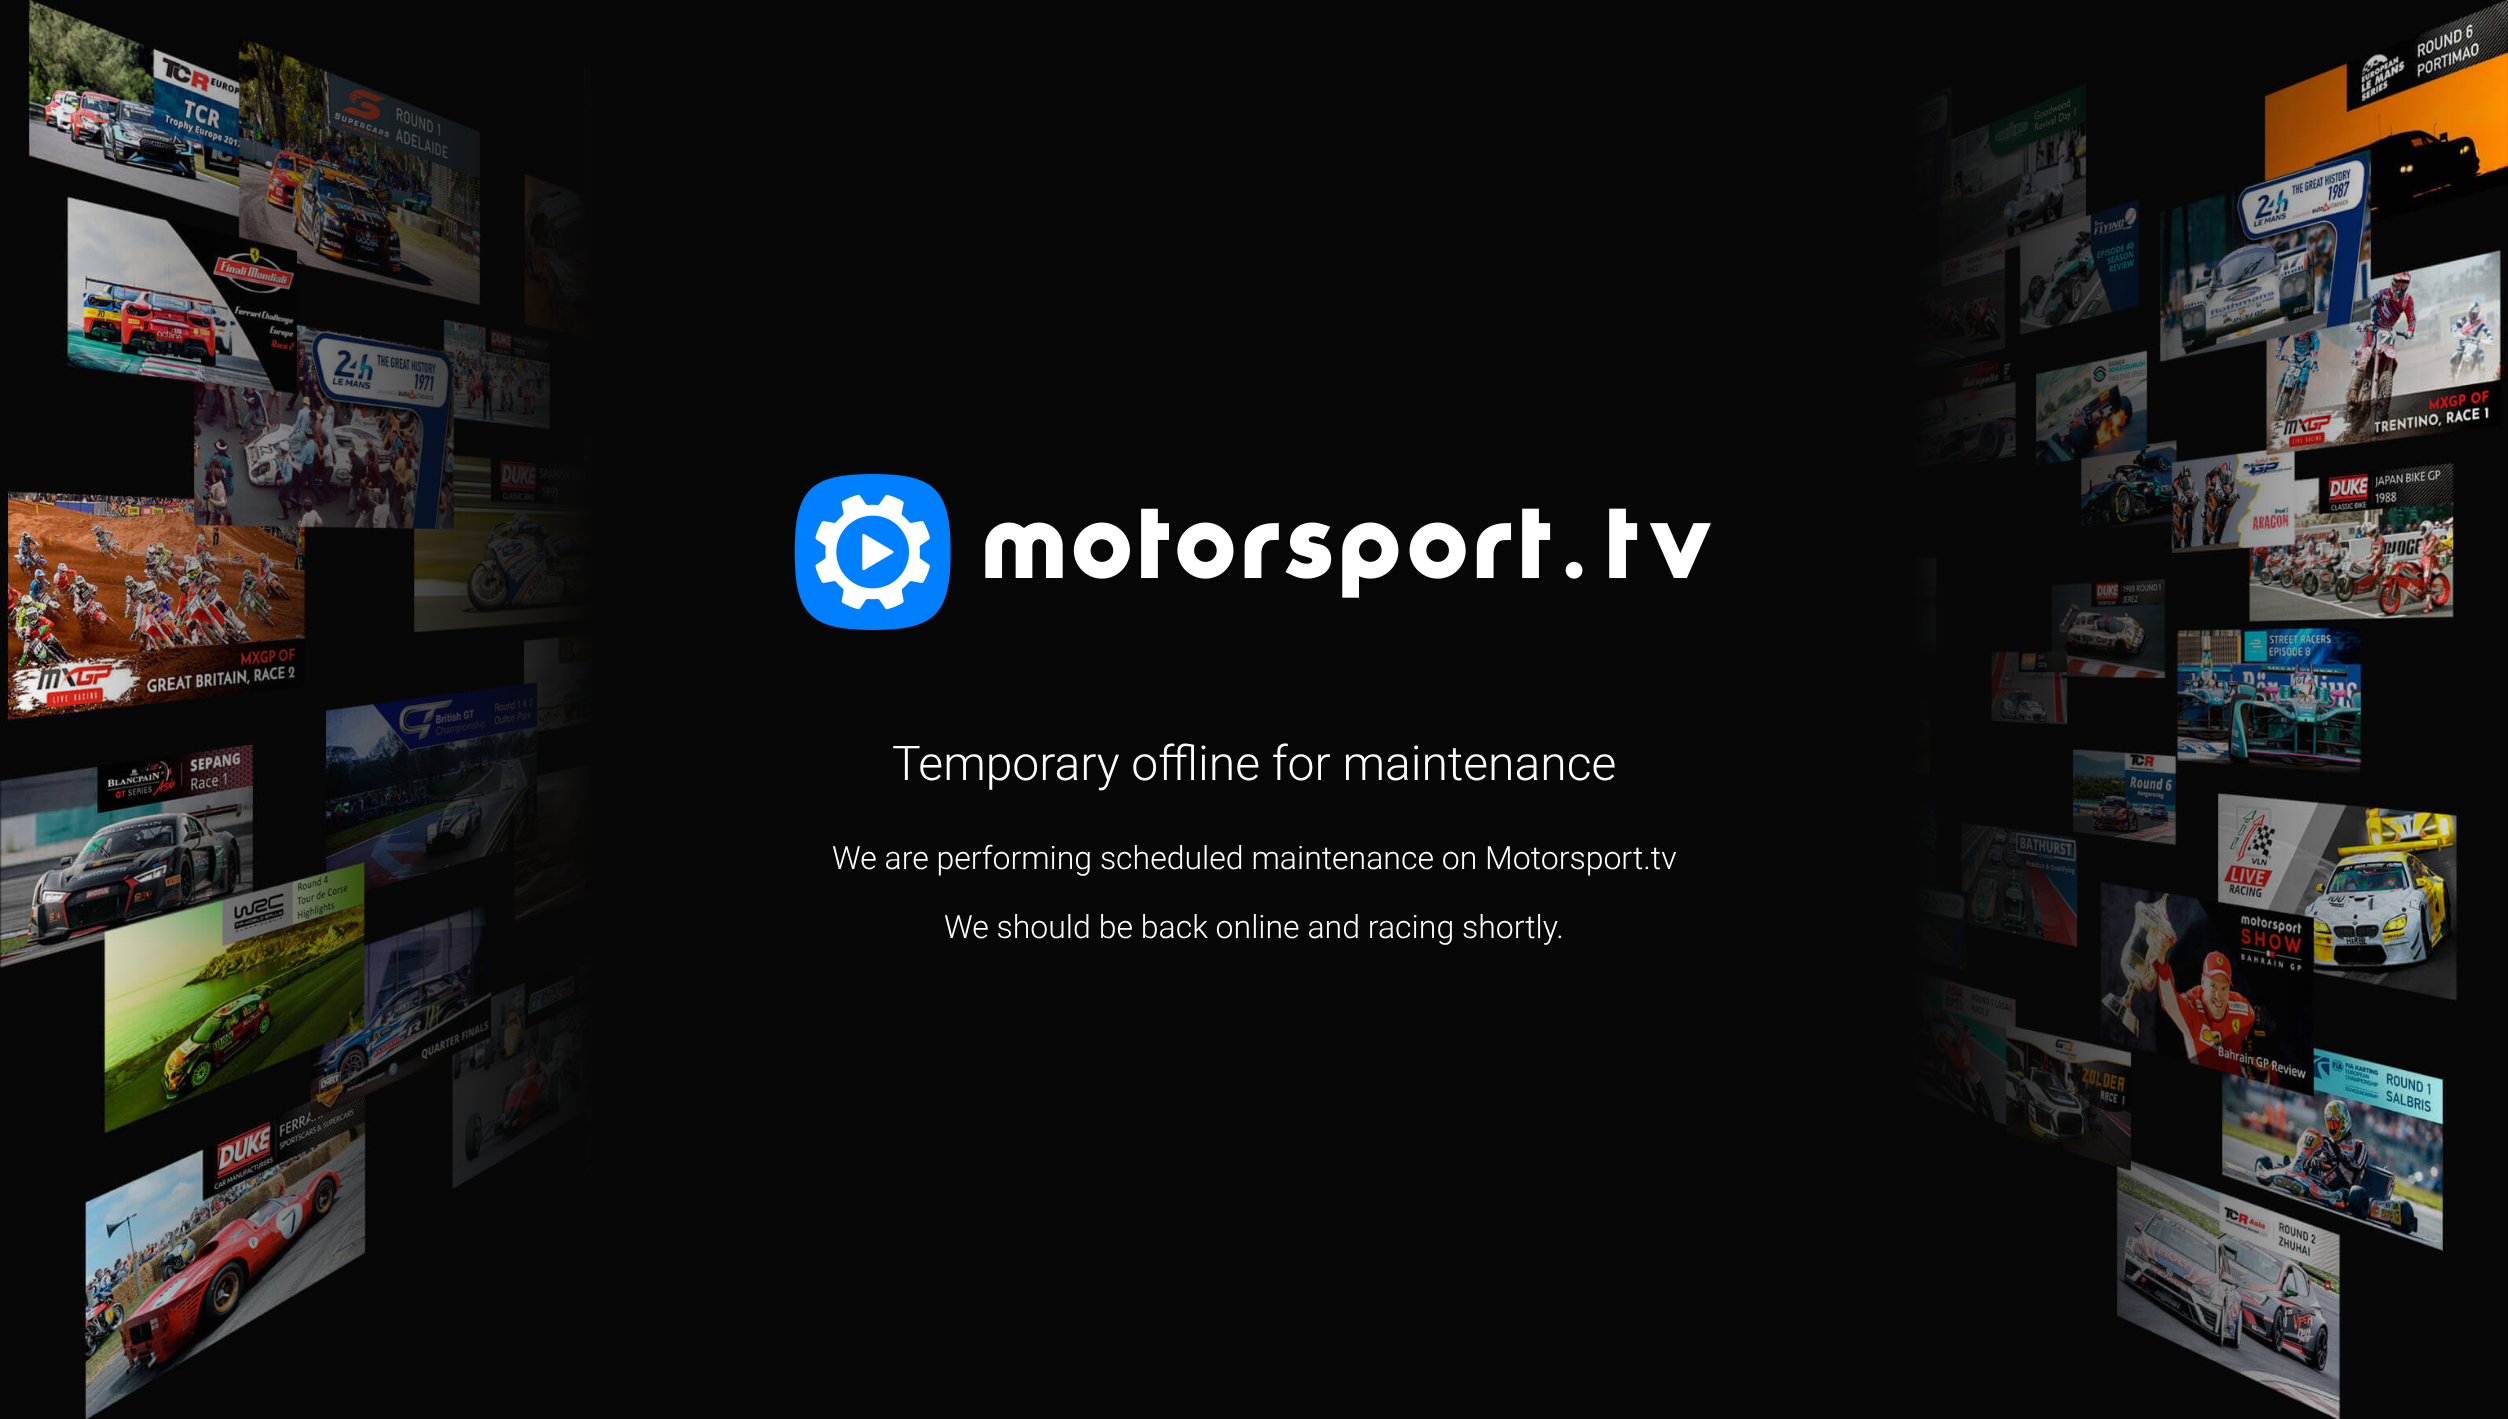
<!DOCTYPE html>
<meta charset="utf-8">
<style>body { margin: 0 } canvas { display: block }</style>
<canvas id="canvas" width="2508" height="1419"></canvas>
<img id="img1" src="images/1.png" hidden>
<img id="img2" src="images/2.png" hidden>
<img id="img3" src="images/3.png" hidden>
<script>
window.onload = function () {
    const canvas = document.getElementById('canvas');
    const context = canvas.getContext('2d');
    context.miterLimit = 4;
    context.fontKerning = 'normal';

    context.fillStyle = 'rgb(255, 255, 255)';
    context.fillRect(0, 0, 2508, 1419);
    context.drawImage(document.getElementById('img1'), 0, 0, 794, 1419);
    context.drawImage(document.getElementById('img2'), 1714, 0, 794, 1419);
    context.fillStyle = 'rgb(7, 7, 7)';
    context.fillRect(794, 0, 920, 1419);
    context.drawImage(document.getElementById('img3'), 794, 474, 917, 156);
    context.font = '300 48px Roboto';
    context.fillStyle = 'rgb(255, 255, 255)';
    context.fillText('Temporary offline for maintenance', 892, 780);
    context.font = '300 32px Roboto';
    context.fillText('We are performing scheduled maintenance on Motorsport.tv', 832, 869);
    context.fillText('We should be back online and racing shortly.', 944, 938);
};
</script>
